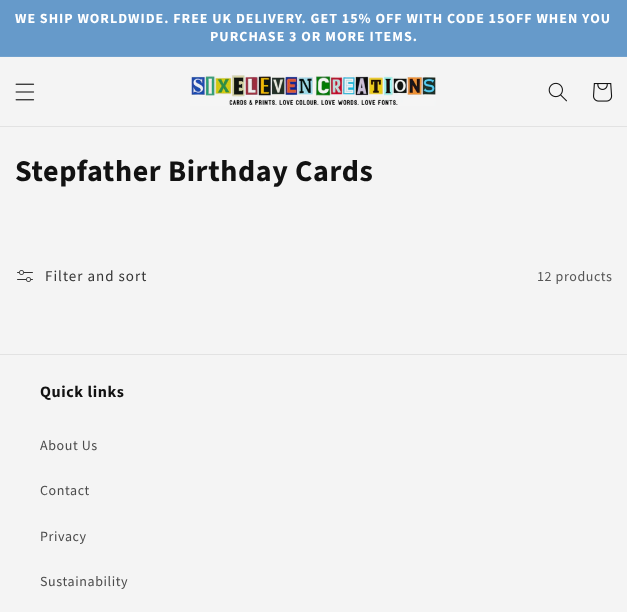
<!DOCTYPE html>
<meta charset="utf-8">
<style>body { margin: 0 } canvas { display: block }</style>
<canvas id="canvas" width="627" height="612"></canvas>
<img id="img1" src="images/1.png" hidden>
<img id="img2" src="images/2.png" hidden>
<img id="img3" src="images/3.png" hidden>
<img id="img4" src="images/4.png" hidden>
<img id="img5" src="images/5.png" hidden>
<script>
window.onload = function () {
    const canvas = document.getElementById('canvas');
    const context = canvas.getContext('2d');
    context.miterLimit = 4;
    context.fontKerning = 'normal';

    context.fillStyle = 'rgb(244, 244, 244)';
    context.fillRect(0, 0, 627, 612);
    context.fillStyle = 'rgb(102, 154, 202)';
    context.fillRect(0, 0, 627, 56);
    context.fillStyle = 'rgb(114, 162, 206)';
    context.fillRect(0, 56, 627, 1);
    context.fillStyle = 'rgb(226, 226, 226)';
    context.fillRect(0, 126, 627, 1);
    context.drawImage(document.getElementById('img1'), 15, 83, 20, 18);
    context.drawImage(document.getElementById('img2'), 190, 75, 246, 31);
    context.drawImage(document.getElementById('img3'), 548, 82, 19, 20);
    context.drawImage(document.getElementById('img4'), 593, 83, 20, 19);
    context.drawImage(document.getElementById('img5'), 17, 270, 16, 12);
    context.fillRect(0, 354, 627, 1);
    context.letterSpacing = '1px';
    context.font = 'bold 14px Source Sans Pro';
    context.fillStyle = 'rgb(255, 255, 255)';
    context.fillText('WE SHIP WORLDWIDE. FREE UK DELIVERY. GET 15% OFF WITH CODE 15OFF WHEN YOU', 15, 23);
    context.fillText('PURCHASE 3 OR MORE ITEMS.', 210, 41);
    context.letterSpacing = '0.6px';
    context.font = 'bold 30px Source Sans Pro';
    context.fillStyle = 'rgb(18, 18, 18)';
    context.fillText('Stepfather Birthday Cards', 15, 181);
    context.letterSpacing = '1px';
    context.font = '15px Source Sans Pro';
    context.fillStyle = 'rgb(52, 52, 52)';
    context.fillText('Filter and sort', 45, 281);
    context.letterSpacing = '0.6px';
    context.font = '14px Source Sans Pro';
    context.fillStyle = 'rgb(86, 86, 86)';
    context.fillText('12 products', 537, 281);
    context.font = 'bold 16px Source Sans Pro';
    context.fillStyle = 'rgb(18, 18, 18)';
    context.fillText('Quick links', 40, 397);
    context.font = '14px Source Sans Pro';
    context.fillStyle = 'rgb(75, 75, 75)';
    context.fillText('About Us', 40, 450);
    context.fillText('Contact', 40, 495);
    context.fillText('Privacy', 40, 541);
    context.fillText('Sustainability', 40, 586);
};
</script>
